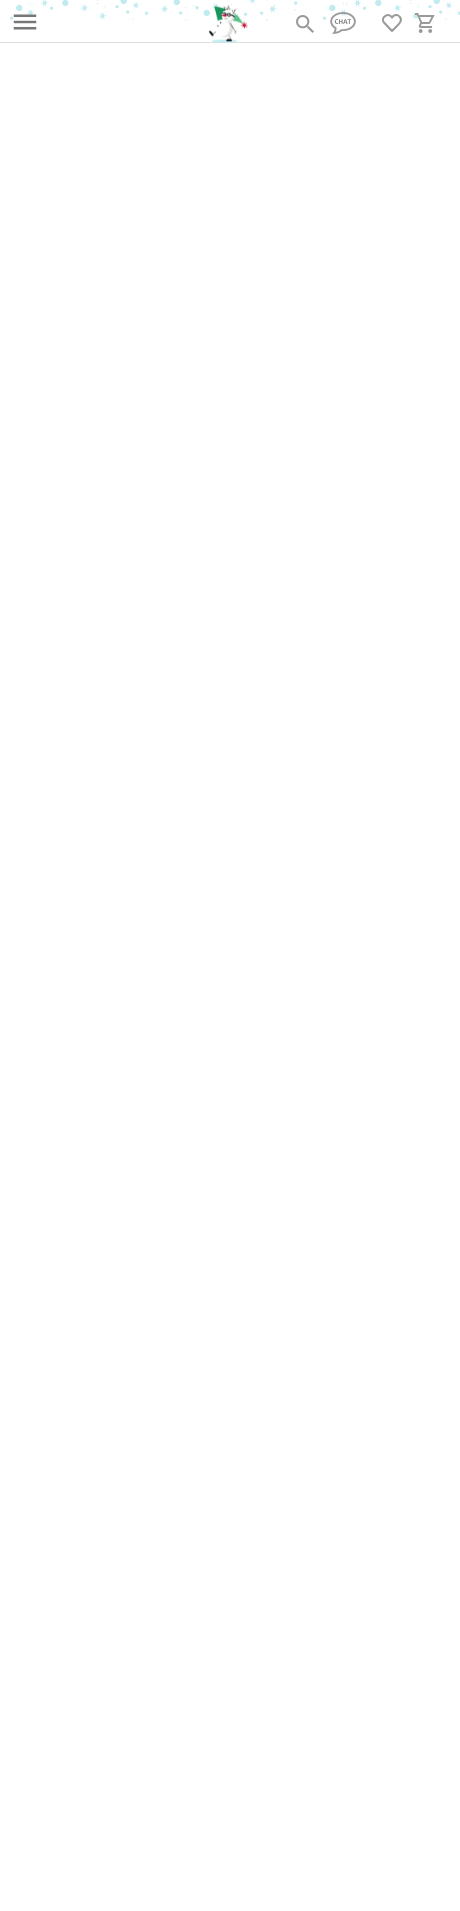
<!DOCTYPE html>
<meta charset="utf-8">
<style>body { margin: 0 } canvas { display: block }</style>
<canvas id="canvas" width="460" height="1911"></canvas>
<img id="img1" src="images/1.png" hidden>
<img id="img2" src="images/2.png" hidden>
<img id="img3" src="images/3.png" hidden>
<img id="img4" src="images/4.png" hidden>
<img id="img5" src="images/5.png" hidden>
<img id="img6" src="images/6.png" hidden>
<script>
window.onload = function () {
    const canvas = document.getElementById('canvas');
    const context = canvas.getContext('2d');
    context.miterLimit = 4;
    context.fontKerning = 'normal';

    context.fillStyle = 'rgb(255, 255, 255)';
    context.fillRect(0, 0, 460, 1911);
    context.drawImage(document.getElementById('img1'), 9, 0, 451, 21);
    context.fillStyle = 'rgb(221, 221, 221)';
    context.fillRect(0, 42, 460, 1);
    context.drawImage(document.getElementById('img2'), 13, 14, 24, 16);
    context.drawImage(document.getElementById('img3'), 209, 5, 39, 38);
    context.drawImage(document.getElementById('img4'), 296, 15, 18, 18);
    context.drawImage(document.getElementById('img5'), 330, 12, 26, 22);
    context.beginPath();
    context.moveTo(399.5, 16.5);
    context.bezierCurveTo(403, 20, 399.5, 23.5, 397, 26);
    context.lineTo(392, 31);
    context.lineTo(383.5, 22);
    context.bezierCurveTo(380.5, 17, 389, 12, 392, 17.5);
    context.bezierCurveTo(393.5, 14.5, 397.5, 14, 399.5, 16.5);
    context.closePath();
    context.strokeStyle = 'rgb(154, 154, 154)';
    context.lineWidth = 2;
    context.lineCap = 'round';
    context.lineJoin = 'round';
    context.stroke();
    context.drawImage(document.getElementById('img6'), 415, 13, 20, 20);
};
</script>
